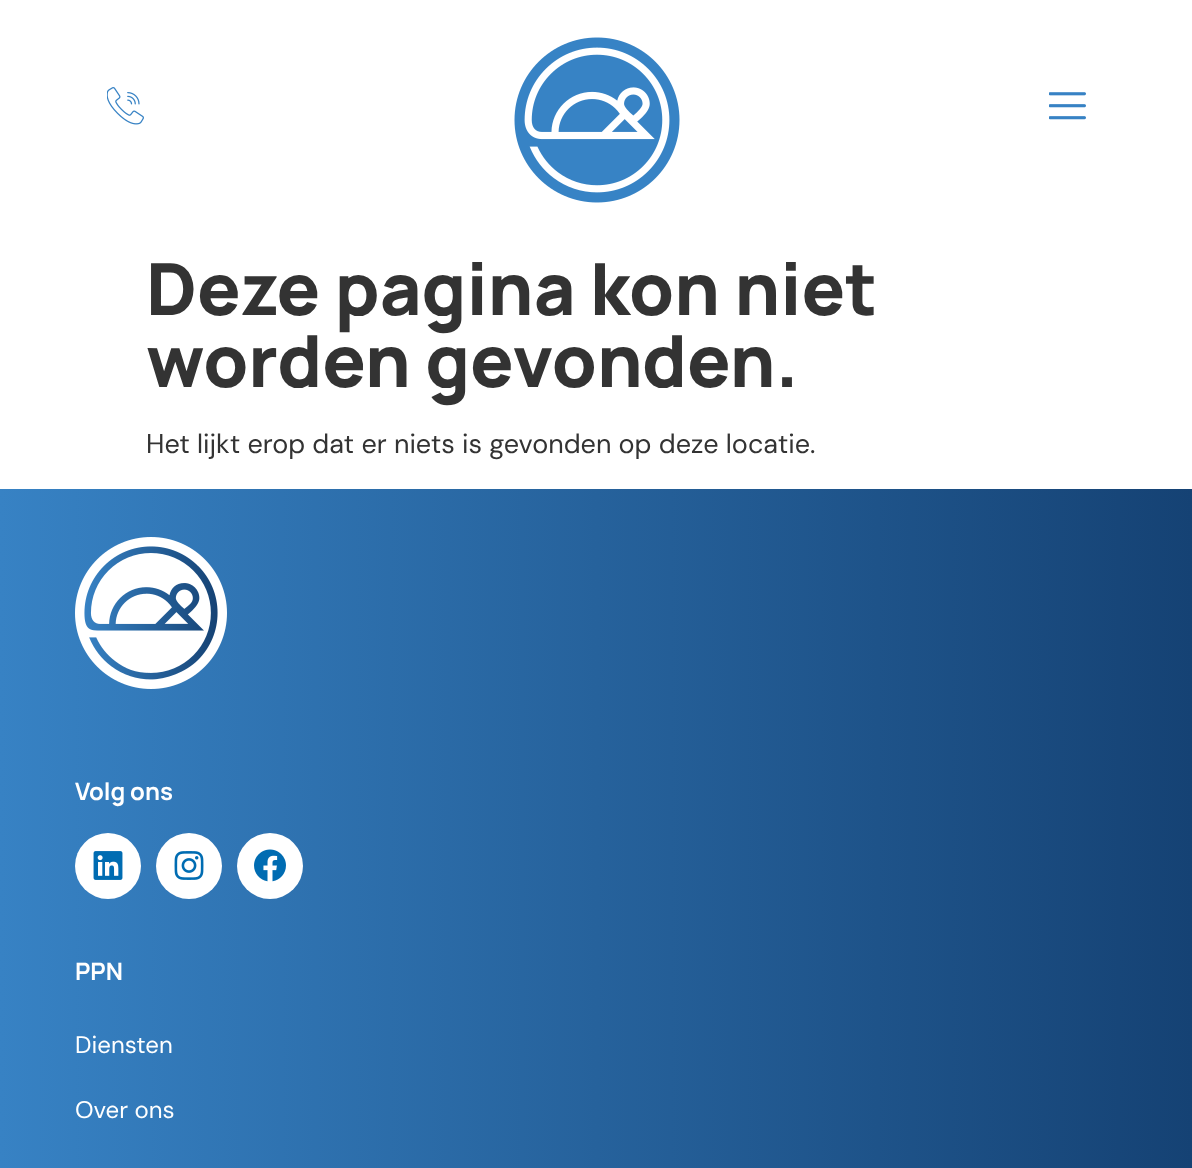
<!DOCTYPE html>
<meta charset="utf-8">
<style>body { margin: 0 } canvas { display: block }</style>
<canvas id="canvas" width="1192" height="1168"></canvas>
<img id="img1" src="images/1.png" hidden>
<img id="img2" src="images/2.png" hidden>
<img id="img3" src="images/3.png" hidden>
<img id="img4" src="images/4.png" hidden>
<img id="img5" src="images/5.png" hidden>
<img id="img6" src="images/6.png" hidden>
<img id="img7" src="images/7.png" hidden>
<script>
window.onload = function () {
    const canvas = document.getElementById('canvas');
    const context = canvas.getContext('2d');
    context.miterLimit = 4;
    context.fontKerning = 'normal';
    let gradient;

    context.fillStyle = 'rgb(255, 255, 255)';
    context.fillRect(0, 0, 1192, 1168);
    context.drawImage(document.getElementById('img1'), 107, 87, 37, 38);
    context.drawImage(document.getElementById('img2'), 514, 37, 166, 166);
    context.drawImage(document.getElementById('img3'), 1049, 92, 37, 28);
    gradient = context.createLinearGradient(0, 1153, 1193, 1153);
    gradient.addColorStop(0, 'rgb(55, 130, 196)');
    gradient.addColorStop(1, 'rgb(21, 66, 116)');
    context.fillStyle = gradient;
    context.fillRect(0, 489, 1192, 679);
    context.drawImage(document.getElementById('img4'), 75, 537, 152, 152);
    context.fillStyle = 'rgb(255, 255, 255)';
    context.beginPath();
    context.arc(108, 866, 33, 0, 2 * Math.PI);
    context.fill();
    context.drawImage(document.getElementById('img5'), 93, 851, 30, 29);
    context.beginPath();
    context.arc(189, 866, 33, 0, 2 * Math.PI);
    context.fill();
    context.drawImage(document.getElementById('img6'), 174, 851, 30, 29);
    context.beginPath();
    context.arc(270, 866, 33, 0, 2 * Math.PI);
    context.fill();
    context.drawImage(document.getElementById('img7'), 254, 849, 32, 33);
    context.font = '800 72px Manrope';
    context.fillStyle = 'rgb(51, 51, 51)';
    context.fillText('Deze pagina kon niet', 146, 315);
    context.fillText('worden gevonden.', 146, 387);
    context.font = '27px DM Sans';
    context.fillText('Het lijkt erop dat er niets is gevonden op deze locatie.', 146, 453);
    context.font = 'bold 24px Manrope';
    context.fillStyle = 'rgb(255, 255, 255)';
    context.fillText('Volg ons', 75, 800);
    context.fillText('PPN', 75, 980);
    context.font = '24px DM Sans';
    context.fillText('Diensten', 75, 1053);
    context.fillText('Over ons', 75, 1118);
};
</script>
